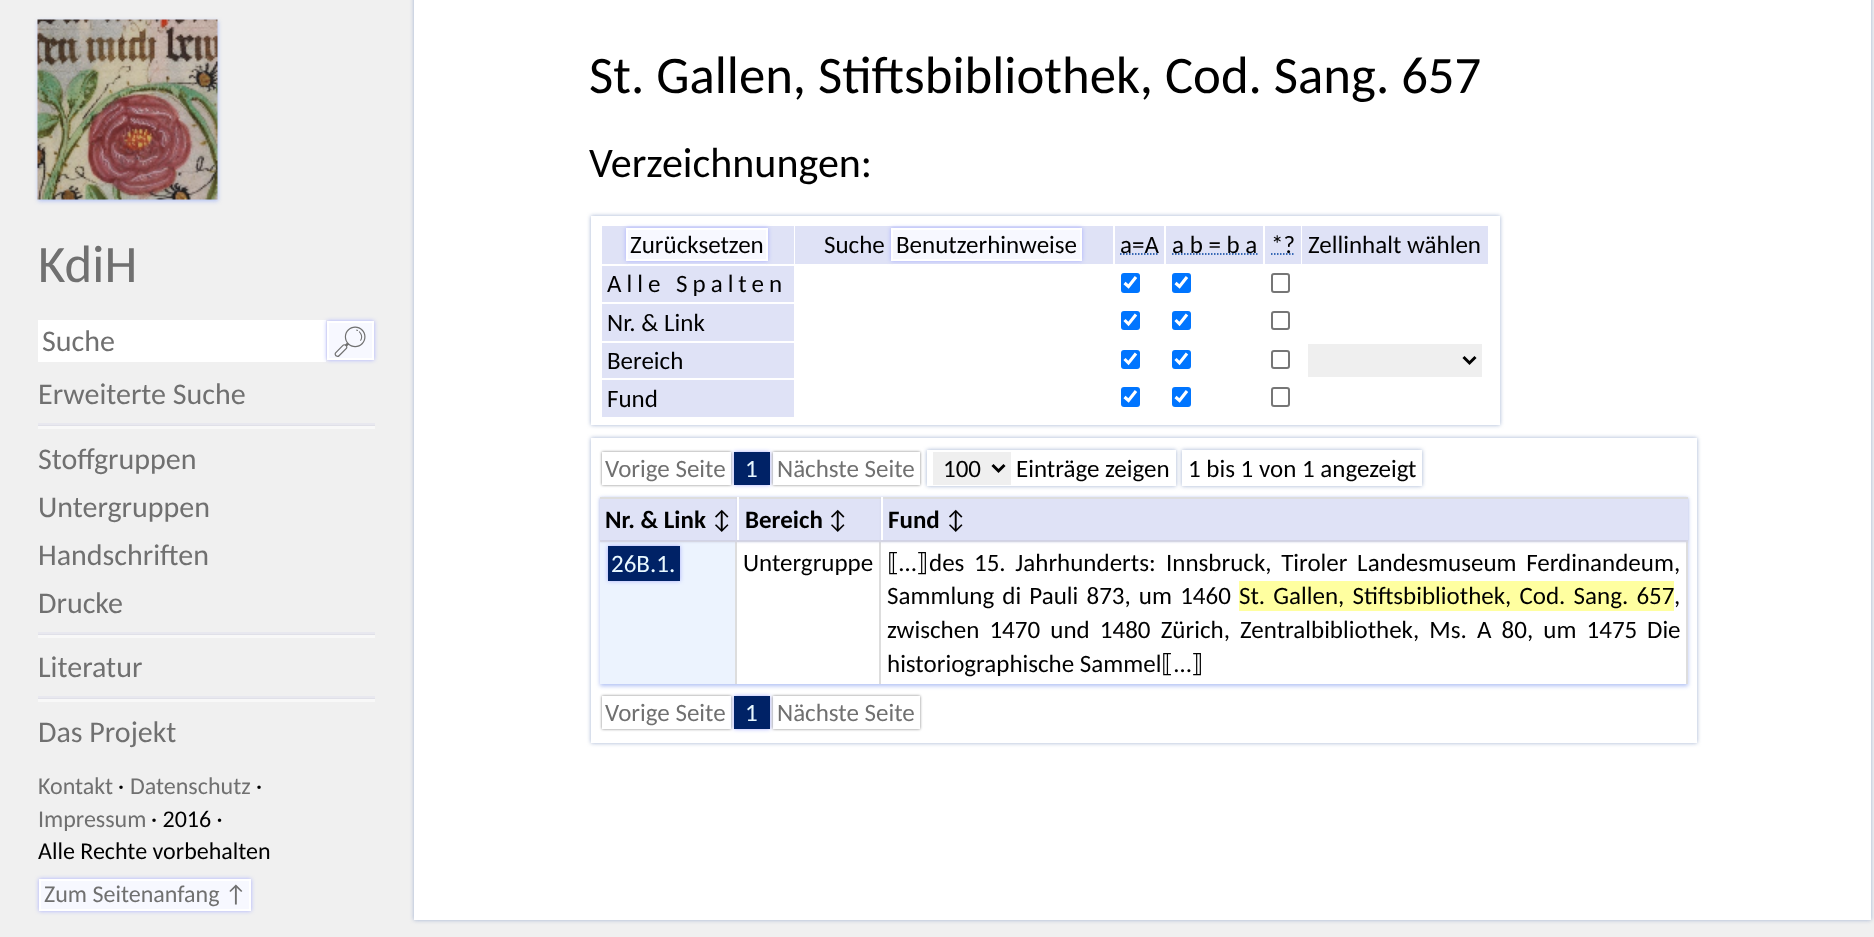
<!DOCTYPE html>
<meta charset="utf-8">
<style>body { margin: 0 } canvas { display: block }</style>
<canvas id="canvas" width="1874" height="937"></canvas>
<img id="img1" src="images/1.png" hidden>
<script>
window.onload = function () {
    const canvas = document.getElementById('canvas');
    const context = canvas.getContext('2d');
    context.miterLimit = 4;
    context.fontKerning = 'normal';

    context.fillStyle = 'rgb(240, 240, 240)';
    context.fillRect(0, 0, 1874, 937);
    context.fillStyle = 'rgb(176, 192, 244)';
    context.filter = 'blur(2px)';
    context.beginPath();
    context.rect(38, 21, 180, 180);
    context.fill();
    context.filter = 'none';
    context.drawImage(document.getElementById('img1'), 37, 19, 181, 181);
    context.fillStyle = 'rgb(255, 255, 255)';
    context.fillRect(38, 320, 288, 42);
    context.fillStyle = 'rgb(170, 175, 255)';
    context.filter = 'blur(2px)';
    context.beginPath();
    context.rect(327, 321, 47, 39);
    context.fill();
    context.filter = 'none';
    context.fillStyle = 'rgb(247, 248, 255)';
    context.beginPath();
    context.rect(328, 322, 45, 37);
    context.fill();
    context.strokeStyle = 'rgb(255, 255, 255)';
    context.lineWidth = 2;
    context.stroke();
    context.fillStyle = 'rgb(224, 224, 232)';
    context.fillRect(38, 425, 337, 1);
    context.fillStyle = 'rgb(232, 232, 239)';
    context.fillRect(38, 423, 337, 2);
    context.fillStyle = 'rgb(248, 248, 248)';
    context.fillRect(38, 426, 337, 3);
    context.fillStyle = 'rgb(224, 224, 232)';
    context.fillRect(38, 634, 337, 1);
    context.fillStyle = 'rgb(232, 232, 239)';
    context.fillRect(38, 632, 337, 2);
    context.fillStyle = 'rgb(248, 248, 248)';
    context.fillRect(38, 635, 337, 3);
    context.fillStyle = 'rgb(224, 224, 232)';
    context.fillRect(38, 698, 337, 1);
    context.fillStyle = 'rgb(232, 232, 239)';
    context.fillRect(38, 696, 337, 2);
    context.fillStyle = 'rgb(248, 248, 248)';
    context.fillRect(38, 699, 337, 3);
    context.fillStyle = 'rgb(170, 175, 255)';
    context.filter = 'blur(2px)';
    context.beginPath();
    context.rect(39, 879, 212, 32);
    context.fill();
    context.filter = 'none';
    context.fillStyle = 'rgb(247, 248, 255)';
    context.beginPath();
    context.rect(40, 880, 210, 30);
    context.fill();
    context.stroke();
    context.fillStyle = 'rgb(160, 176, 208)';
    context.filter = 'blur(2px)';
    context.beginPath();
    context.rect(414, -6, 1457, 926);
    context.fill();
    context.filter = 'none';
    context.fillStyle = 'rgb(255, 255, 255)';
    context.fillRect(414, 0, 1457, 920);
    context.fillStyle = 'rgb(160, 176, 208)';
    context.filter = 'blur(2px)';
    context.beginPath();
    context.rect(591, 216, 909, 209);
    context.fill();
    context.filter = 'none';
    context.fillStyle = 'rgb(255, 255, 255)';
    context.fillRect(591, 216, 909, 209);
    context.fillStyle = 'rgb(223, 226, 246)';
    context.fillRect(602, 226, 192, 38);
    context.fillStyle = 'rgb(170, 175, 255)';
    context.filter = 'blur(2px)';
    context.beginPath();
    context.rect(626, 228, 142, 33);
    context.fill();
    context.filter = 'none';
    context.fillStyle = 'rgb(247, 248, 255)';
    context.beginPath();
    context.rect(627, 229, 140, 31);
    context.fill();
    context.stroke();
    context.fillStyle = 'rgb(223, 226, 246)';
    context.fillRect(795, 226, 318, 38);
    context.fillStyle = 'rgb(170, 175, 255)';
    context.filter = 'blur(2px)';
    context.beginPath();
    context.rect(891, 228, 191, 33);
    context.fill();
    context.filter = 'none';
    context.fillStyle = 'rgb(247, 248, 255)';
    context.beginPath();
    context.rect(892, 229, 189, 31);
    context.fill();
    context.stroke();
    context.fillStyle = 'rgb(223, 226, 246)';
    context.fillRect(1115, 226, 49, 38);
    context.beginPath();
    context.moveTo(1120, 254);
    context.lineTo(1158.5, 254);
    context.strokeStyle = 'rgb(0, 64, 160)';
    context.lineWidth = 1.5;
    context.setLineDash([1.5, 1.5]);
    context.stroke();
    context.fillRect(1166, 226, 97, 38);
    context.beginPath();
    context.moveTo(1172, 254);
    context.lineTo(1257.5, 254);
    context.stroke();
    context.fillRect(1265, 226, 36, 38);
    context.beginPath();
    context.moveTo(1271, 254);
    context.lineTo(1295, 254);
    context.stroke();
    context.fillRect(1302, 226, 186, 38);
    context.fillStyle = 'rgb(255, 255, 255)';
    context.fillRect(893, 264, 187, 1);
    context.fillStyle = 'rgb(223, 226, 246)';
    context.fillRect(602, 266, 192, 36);
    context.fillStyle = 'rgb(255, 255, 255)';
    context.fillRect(628, 264, 138, 1);
    context.fillStyle = 'rgb(0, 117, 255)';
    context.beginPath();
    context.roundRect(1121, 273, 19, 20, 3);
    context.fill();
    context.beginPath();
    context.moveTo(1124.5, 283);
    context.lineTo(1128.5, 286.5);
    context.lineTo(1136, 277);
    context.strokeStyle = 'rgb(255, 255, 255)';
    context.lineWidth = 3.1;
    context.setLineDash([]);
    context.stroke();
    context.beginPath();
    context.roundRect(1172, 273, 19, 20, 3);
    context.fill();
    context.beginPath();
    context.moveTo(1175.5, 283);
    context.lineTo(1179.5, 286.5);
    context.lineTo(1187, 277);
    context.stroke();
    context.beginPath();
    context.roundRect(1272, 274, 17, 18, 2);
    context.strokeStyle = 'rgb(118, 118, 118)';
    context.lineWidth = 2;
    context.stroke();
    context.fillStyle = 'rgb(223, 226, 246)';
    context.fillRect(602, 304, 192, 37);
    context.fillStyle = 'rgb(0, 117, 255)';
    context.beginPath();
    context.roundRect(1121, 311, 19, 19, 3);
    context.fill();
    context.beginPath();
    context.moveTo(1124.5, 320);
    context.lineTo(1128.5, 324);
    context.lineTo(1136, 314.5);
    context.strokeStyle = 'rgb(255, 255, 255)';
    context.lineWidth = 3.1;
    context.stroke();
    context.beginPath();
    context.roundRect(1172, 311, 19, 19, 3);
    context.fill();
    context.beginPath();
    context.moveTo(1175.5, 320);
    context.lineTo(1179.5, 324);
    context.lineTo(1187, 314.5);
    context.stroke();
    context.beginPath();
    context.roundRect(1272, 312, 17, 17, 2);
    context.strokeStyle = 'rgb(118, 118, 118)';
    context.lineWidth = 2;
    context.stroke();
    context.fillStyle = 'rgb(223, 226, 246)';
    context.fillRect(602, 343, 192, 35);
    context.fillStyle = 'rgb(0, 117, 255)';
    context.beginPath();
    context.roundRect(1121, 350, 19, 19, 3);
    context.fill();
    context.beginPath();
    context.moveTo(1124.5, 359);
    context.lineTo(1128.5, 363);
    context.lineTo(1136, 353.5);
    context.strokeStyle = 'rgb(255, 255, 255)';
    context.lineWidth = 3.1;
    context.stroke();
    context.beginPath();
    context.roundRect(1172, 350, 19, 19, 3);
    context.fill();
    context.beginPath();
    context.moveTo(1175.5, 359);
    context.lineTo(1179.5, 363);
    context.lineTo(1187, 353.5);
    context.stroke();
    context.beginPath();
    context.roundRect(1272, 351, 17, 17, 2);
    context.strokeStyle = 'rgb(118, 118, 118)';
    context.lineWidth = 2;
    context.stroke();
    context.fillStyle = 'rgb(239, 239, 239)';
    context.fillRect(1308, 344, 174, 33);
    context.beginPath();
    context.moveTo(1463.5, 357);
    context.lineTo(1469.5, 363);
    context.lineTo(1475.5, 357);
    context.strokeStyle = 'rgb(0, 0, 0)';
    context.lineWidth = 3;
    context.stroke();
    context.fillStyle = 'rgb(223, 226, 246)';
    context.fillRect(602, 380, 192, 37);
    context.fillStyle = 'rgb(0, 117, 255)';
    context.beginPath();
    context.roundRect(1121, 387, 19, 20, 3);
    context.fill();
    context.beginPath();
    context.moveTo(1124.5, 397);
    context.lineTo(1128.5, 400.5);
    context.lineTo(1136, 391);
    context.strokeStyle = 'rgb(255, 255, 255)';
    context.lineWidth = 3.1;
    context.stroke();
    context.beginPath();
    context.roundRect(1172, 387, 19, 20, 3);
    context.fill();
    context.beginPath();
    context.moveTo(1175.5, 397);
    context.lineTo(1179.5, 400.5);
    context.lineTo(1187, 391);
    context.stroke();
    context.beginPath();
    context.roundRect(1272, 388, 17, 18, 2);
    context.strokeStyle = 'rgb(118, 118, 118)';
    context.lineWidth = 2;
    context.stroke();
    context.fillStyle = 'rgb(160, 176, 208)';
    context.filter = 'blur(2px)';
    context.beginPath();
    context.rect(591, 438, 1106, 305);
    context.fill();
    context.filter = 'none';
    context.fillStyle = 'rgb(255, 255, 255)';
    context.fillRect(591, 438, 1106, 305);
    context.save();
    context.beginPath();
    context.moveTo(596, 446);
    context.lineTo(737, 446);
    context.lineTo(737, 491);
    context.lineTo(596, 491);
    context.closePath();
    context.moveTo(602, 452);
    context.lineTo(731, 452);
    context.lineTo(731, 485);
    context.lineTo(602, 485);
    context.closePath();
    context.clip('evenodd');
    context.fillStyle = 'rgb(128, 128, 128)';
    context.filter = 'blur(1.5px)';
    context.beginPath();
    context.rect(602, 452, 129, 33);
    context.fill();
    context.filter = 'none';
    context.restore();
    context.fillStyle = 'rgb(170, 175, 255)';
    context.filter = 'blur(2px)';
    context.beginPath();
    context.rect(734, 452, 36, 33);
    context.fill();
    context.filter = 'none';
    context.fillStyle = 'rgb(0, 34, 102)';
    context.fillRect(734, 452, 36, 33);
    context.save();
    context.beginPath();
    context.moveTo(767, 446);
    context.lineTo(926, 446);
    context.lineTo(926, 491);
    context.lineTo(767, 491);
    context.closePath();
    context.moveTo(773, 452);
    context.lineTo(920, 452);
    context.lineTo(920, 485);
    context.lineTo(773, 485);
    context.closePath();
    context.clip('evenodd');
    context.fillStyle = 'rgb(128, 128, 128)';
    context.filter = 'blur(1.5px)';
    context.beginPath();
    context.rect(773, 452, 147, 33);
    context.fill();
    context.filter = 'none';
    context.restore();
    context.save();
    context.beginPath();
    context.moveTo(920, 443);
    context.lineTo(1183, 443);
    context.lineTo(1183, 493);
    context.lineTo(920, 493);
    context.closePath();
    context.moveTo(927, 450);
    context.lineTo(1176, 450);
    context.lineTo(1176, 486);
    context.lineTo(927, 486);
    context.closePath();
    context.clip('evenodd');
    context.fillStyle = 'rgb(160, 176, 208)';
    context.filter = 'blur(2px)';
    context.beginPath();
    context.rect(927, 450, 249, 36);
    context.fill();
    context.filter = 'none';
    context.restore();
    context.fillStyle = 'rgb(239, 239, 239)';
    context.fillRect(933, 452, 78, 33);
    context.beginPath();
    context.moveTo(992.5, 465);
    context.lineTo(998.5, 471);
    context.lineTo(1004.5, 465);
    context.strokeStyle = 'rgb(0, 0, 0)';
    context.lineWidth = 3;
    context.stroke();
    context.save();
    context.beginPath();
    context.moveTo(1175, 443);
    context.lineTo(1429, 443);
    context.lineTo(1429, 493);
    context.lineTo(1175, 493);
    context.closePath();
    context.moveTo(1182, 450);
    context.lineTo(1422, 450);
    context.lineTo(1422, 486);
    context.lineTo(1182, 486);
    context.closePath();
    context.clip('evenodd');
    context.fillStyle = 'rgb(160, 176, 208)';
    context.filter = 'blur(2px)';
    context.beginPath();
    context.rect(1182, 450, 240, 36);
    context.fill();
    context.filter = 'none';
    context.restore();
    context.save();
    context.beginPath();
    context.moveTo(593, 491);
    context.lineTo(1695, 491);
    context.lineTo(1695, 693);
    context.lineTo(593, 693);
    context.closePath();
    context.moveTo(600, 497);
    context.lineTo(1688, 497);
    context.lineTo(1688, 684);
    context.lineTo(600, 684);
    context.closePath();
    context.clip('evenodd');
    context.fillStyle = 'rgb(176, 192, 244)';
    context.filter = 'blur(2px)';
    context.beginPath();
    context.rect(600, 498, 1088, 188);
    context.fill();
    context.filter = 'none';
    context.restore();
    context.fillStyle = 'rgb(236, 243, 254)';
    context.fillRect(600, 542, 135, 142);
    context.fillStyle = 'rgb(221, 221, 221)';
    context.fillRect(600, 540, 1088, 2);
    context.fillRect(735, 540, 2, 144);
    context.fillStyle = 'rgb(208, 210, 230)';
    context.filter = 'blur(1px)';
    context.beginPath();
    context.rect(600, 498, 137, 44);
    context.fill();
    context.filter = 'none';
    context.fillStyle = 'rgb(170, 175, 255)';
    context.filter = 'blur(2px)';
    context.beginPath();
    context.rect(608, 546, 72, 35);
    context.fill();
    context.filter = 'none';
    context.fillStyle = 'rgb(223, 226, 246)';
    context.fillRect(600, 499, 137, 41);
    context.fillStyle = 'rgb(221, 221, 221)';
    context.fillRect(600, 497, 137, 2);
    context.fillRect(879, 540, 2, 144);
    context.fillStyle = 'rgb(208, 210, 230)';
    context.filter = 'blur(1px)';
    context.beginPath();
    context.rect(737, 498, 144, 44);
    context.fill();
    context.filter = 'none';
    context.fillStyle = 'rgb(223, 226, 246)';
    context.fillRect(739, 499, 142, 41);
    context.fillStyle = 'rgb(221, 221, 221)';
    context.fillRect(737, 497, 144, 2);
    context.fillStyle = 'rgb(255, 255, 255)';
    context.fillRect(737, 497, 2, 43);
    context.fillStyle = 'rgb(221, 221, 221)';
    context.fillRect(1686, 540, 2, 144);
    context.fillStyle = 'rgb(208, 210, 230)';
    context.filter = 'blur(1px)';
    context.beginPath();
    context.rect(881, 498, 807, 44);
    context.fill();
    context.filter = 'none';
    context.fillStyle = 'rgb(223, 226, 246)';
    context.fillRect(883, 499, 805, 41);
    context.fillStyle = 'rgb(221, 221, 221)';
    context.fillRect(881, 497, 807, 2);
    context.fillStyle = 'rgb(255, 255, 255)';
    context.fillRect(881, 497, 2, 43);
    context.fillStyle = 'rgb(0, 34, 102)';
    context.fillRect(608, 546, 72, 35);
    context.fillStyle = 'rgb(255, 255, 160)';
    context.fillRect(1239, 581, 435, 30);
    context.save();
    context.beginPath();
    context.moveTo(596, 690);
    context.lineTo(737, 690);
    context.lineTo(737, 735);
    context.lineTo(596, 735);
    context.closePath();
    context.moveTo(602, 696);
    context.lineTo(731, 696);
    context.lineTo(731, 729);
    context.lineTo(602, 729);
    context.closePath();
    context.clip('evenodd');
    context.fillStyle = 'rgb(128, 128, 128)';
    context.filter = 'blur(1.5px)';
    context.beginPath();
    context.rect(602, 696, 129, 33);
    context.fill();
    context.filter = 'none';
    context.restore();
    context.fillStyle = 'rgb(170, 175, 255)';
    context.filter = 'blur(2px)';
    context.beginPath();
    context.rect(734, 696, 36, 33);
    context.fill();
    context.filter = 'none';
    context.fillStyle = 'rgb(0, 34, 102)';
    context.fillRect(734, 696, 36, 33);
    context.save();
    context.beginPath();
    context.moveTo(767, 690);
    context.lineTo(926, 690);
    context.lineTo(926, 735);
    context.lineTo(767, 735);
    context.closePath();
    context.moveTo(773, 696);
    context.lineTo(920, 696);
    context.lineTo(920, 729);
    context.lineTo(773, 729);
    context.closePath();
    context.clip('evenodd');
    context.fillStyle = 'rgb(128, 128, 128)';
    context.filter = 'blur(1.5px)';
    context.beginPath();
    context.rect(773, 696, 147, 33);
    context.fill();
    context.filter = 'none';
    context.restore();
    context.font = '52.75px Carlito';
    context.fillStyle = 'rgb(112, 112, 112)';
    context.fillText('KdiH', 38, 282);
    context.font = '30px Carlito';
    context.fillText('Suche', 42, 351);
    context.font = '30px Noto Emoji';
    context.fillText('🔎︎', 331, 352);
    context.font = '30px Carlito';
    context.fillText('Erweiterte Suche', 38, 404);
    context.fillText('Stoffgruppen', 38, 469);
    context.fillText('Untergruppen', 38, 517);
    context.fillText('Handschriften', 38, 565);
    context.fillText('Drucke', 38, 613);
    context.fillText('Literatur', 38, 677);
    context.fillText('Das Projekt', 38, 742);
    context.font = '24px Carlito';
    context.fillText('Kontakt', 38, 794);
    context.fillStyle = 'rgb(0, 0, 0)';
    context.fillText('·', 118, 794);
    context.fillStyle = 'rgb(112, 112, 112)';
    context.fillText('Datenschutz', 130, 794);
    context.fillStyle = 'rgb(0, 0, 0)';
    context.fillText('·', 256, 794);
    context.fillStyle = 'rgb(112, 112, 112)';
    context.fillText('Impressum', 38, 827);
    context.fillStyle = 'rgb(0, 0, 0)';
    context.fillText('· 2016 ·', 151, 827);
    context.fillText('Alle Rechte vorbehalten', 38, 859);
    context.fillStyle = 'rgb(112, 112, 112)';
    context.fillText('Zum Seitenanfang ↑', 44, 902);
    context.font = '52.75px Carlito';
    context.fillStyle = 'rgb(0, 0, 0)';
    context.fillText('St. Gallen, Stiftsbibliothek, Cod. Sang. 657', 589, 93);
    context.font = '42px Carlito';
    context.fillText('Verzeichnungen:', 589, 177);
    context.font = '25px Carlito';
    context.fillText('Zurücksetzen', 630, 253);
    context.fillText('Suche', 824, 253);
    context.fillText('Benutzerhinweise', 896, 253);
    context.fillText('a=A', 1120, 253);
    context.fillText('a b = b a', 1172, 253);
    context.fillText('*?', 1271, 253);
    context.fillText('Zellinhalt wählen', 1308, 253);
    context.letterSpacing = '5px';
    context.fillText('Alle Spalten', 607, 292);
    context.letterSpacing = '0px';
    context.fillText('Nr. & Link', 607, 331);
    context.fillText('Bereich', 607, 369);
    context.fillText('Fund', 607, 407);
    context.fillStyle = 'rgb(112, 112, 112)';
    context.fillText('Vorige Seite', 605, 477);
    context.fillStyle = 'rgb(232, 248, 255)';
    context.fillText('1', 745, 477);
    context.fillStyle = 'rgb(112, 112, 112)';
    context.fillText('Nächste Seite', 777, 477);
    context.fillStyle = 'rgb(0, 0, 0)';
    context.fillText('100', 943, 477);
    context.fillText('Einträge zeigen', 1016, 477);
    context.fillText('1 bis 1 von 1 angezeigt', 1188, 477);
    context.font = 'bold 25px Carlito';
    context.fillText('Nr. & Link', 605, 528);
    context.font = '25px Carlito';
    context.fillText('↕', 712, 528);
    context.font = 'bold 25px Carlito';
    context.fillText('Bereich', 745, 528);
    context.font = '25px Carlito';
    context.fillText('↕', 828, 528);
    context.font = 'bold 25px Carlito';
    context.fillText('Fund', 888, 528);
    context.font = '25px Carlito';
    context.fillText('↕', 946, 528);
    context.fillStyle = 'rgb(232, 248, 255)';
    context.fillText('26B.1.', 611, 572);
    context.fillStyle = 'rgb(0, 0, 0)';
    context.fillText('Untergruppe', 743, 571);
    context.font = '25px DejaVu Sans';
    context.fillText('⟦', 887, 571);
    context.font = '25px Carlito';
    context.fillText('…', 899, 571);
    context.font = '25px DejaVu Sans';
    context.fillText('⟧', 916, 571);
    context.wordSpacing = '4px';
    context.font = '25px Carlito';
    context.fillText('des 15. Jahrhunderts:', 929, 571);
    context.fillText('Innsbruck, Tiroler Landesmuseum Ferdinandeum,', 1166, 571);
    context.wordSpacing = '2.5px';
    context.fillText('Sammlung di Pauli 873, um 1460', 887, 604);
    context.fillText('St. Gallen, Stiftsbibliothek, Cod. Sang. 657', 1239, 604);
    context.wordSpacing = '0px';
    context.fillText(',', 1674, 604);
    context.wordSpacing = '4.5px';
    context.fillText('zwischen 1470 und 1480 Zürich, Zentralbibliothek, Ms. A 80, um 1475', 887, 638);
    context.wordSpacing = '0px';
    context.fillText('Die', 1647, 638);
    context.fillText('historiographische Sammel', 887, 672);
    context.font = '25px DejaVu Sans';
    context.fillText('⟦', 1161, 672);
    context.font = '25px Carlito';
    context.fillText('…', 1174, 672);
    context.font = '25px DejaVu Sans';
    context.fillText('⟧', 1191, 672);
    context.font = '25px Carlito';
    context.fillStyle = 'rgb(112, 112, 112)';
    context.fillText('Vorige Seite', 605, 721);
    context.fillStyle = 'rgb(232, 248, 255)';
    context.fillText('1', 745, 721);
    context.fillStyle = 'rgb(112, 112, 112)';
    context.fillText('Nächste Seite', 777, 721);
};
</script>
